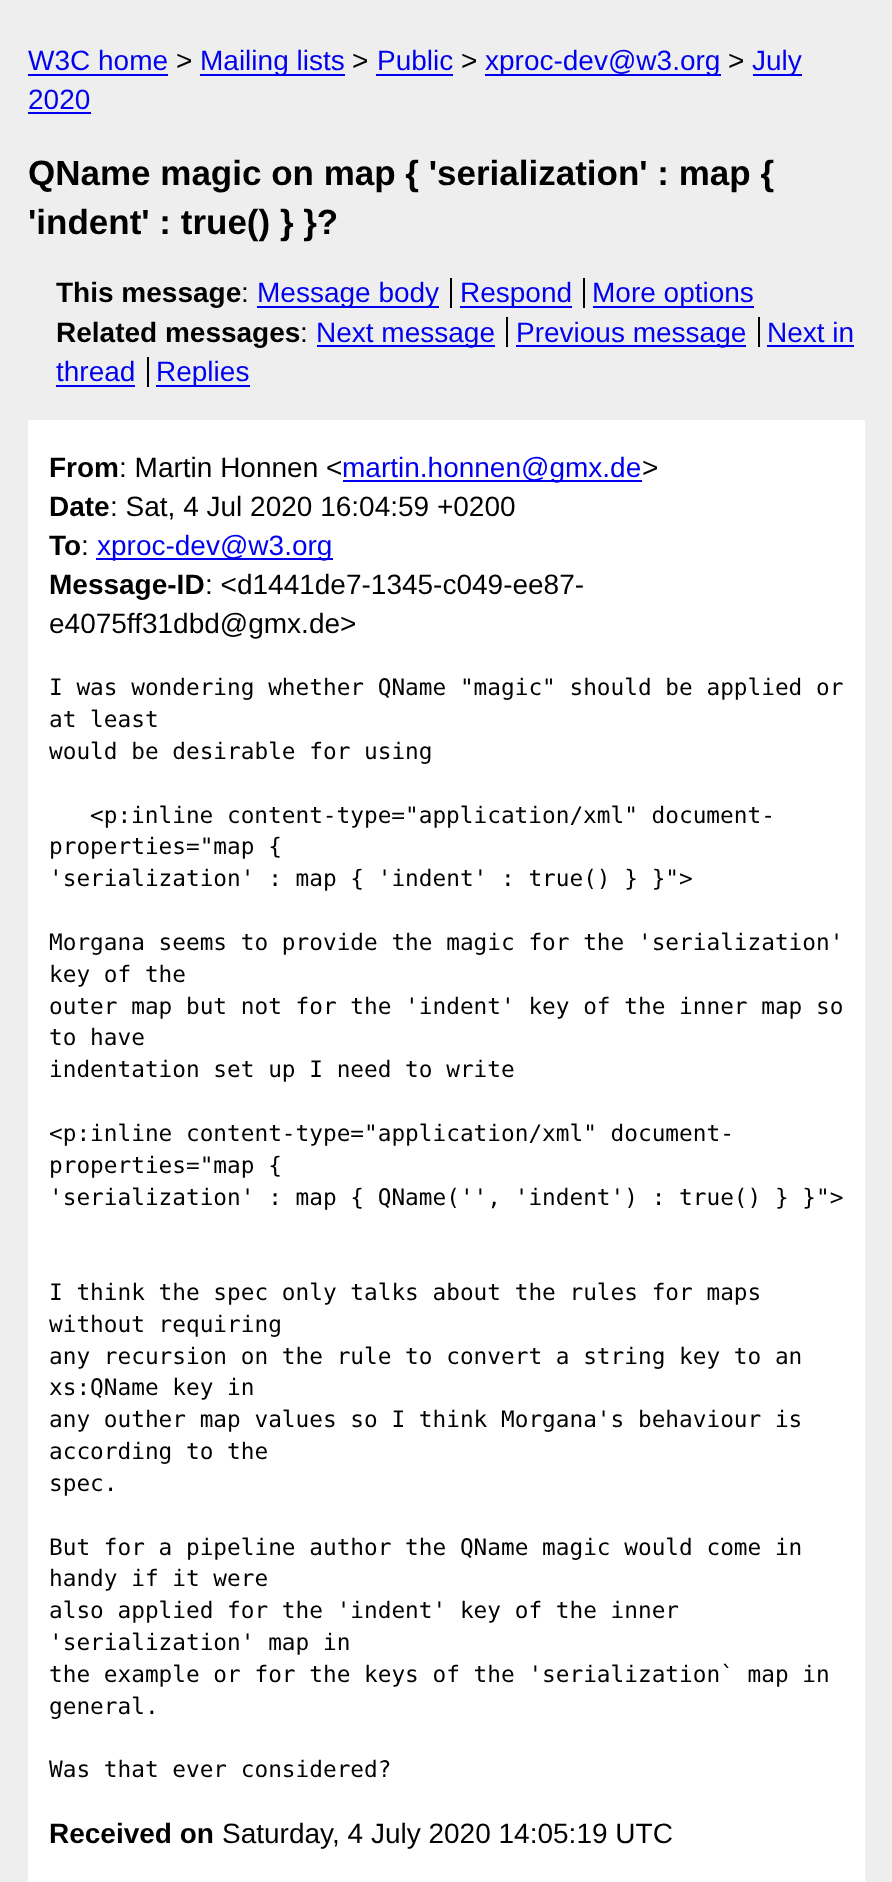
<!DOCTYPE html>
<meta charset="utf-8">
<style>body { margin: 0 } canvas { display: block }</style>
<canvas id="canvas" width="892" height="1882"></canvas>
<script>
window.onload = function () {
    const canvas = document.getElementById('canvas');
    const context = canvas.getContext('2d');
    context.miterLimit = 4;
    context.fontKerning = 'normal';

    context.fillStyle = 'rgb(238, 238, 238)';
    context.fillRect(0, 0, 892, 1882);
    context.fillStyle = 'rgb(0, 0, 238)';
    context.fillRect(28, 74, 140, 2);
    context.fillRect(200, 74, 145, 2);
    context.fillRect(376, 74, 77, 2);
    context.fillRect(485, 74, 236, 2);
    context.fillRect(753, 74, 49, 2);
    context.fillRect(28, 112, 63, 2);
    context.fillRect(257, 306, 182, 2);
    context.fillStyle = 'rgb(0, 0, 0)';
    context.fillRect(450, 278, 2, 30);
    context.fillStyle = 'rgb(0, 0, 238)';
    context.fillRect(460, 306, 112, 2);
    context.fillStyle = 'rgb(0, 0, 0)';
    context.fillRect(583, 278, 2, 30);
    context.fillStyle = 'rgb(0, 0, 238)';
    context.fillRect(593, 306, 161, 2);
    context.fillRect(317, 345, 178, 2);
    context.fillStyle = 'rgb(0, 0, 0)';
    context.fillRect(506, 317, 2, 30);
    context.fillStyle = 'rgb(0, 0, 238)';
    context.fillRect(516, 345, 230, 2);
    context.fillStyle = 'rgb(0, 0, 0)';
    context.fillRect(758, 317, 2, 30);
    context.fillStyle = 'rgb(0, 0, 238)';
    context.fillRect(767, 345, 87, 2);
    context.fillRect(56, 385, 79, 2);
    context.fillStyle = 'rgb(0, 0, 0)';
    context.fillRect(147, 357, 2, 30);
    context.fillStyle = 'rgb(0, 0, 238)';
    context.fillRect(156, 385, 94, 2);
    context.fillStyle = 'rgb(255, 255, 255)';
    context.fillRect(28, 420, 837, 1462);
    context.fillStyle = 'rgb(0, 0, 238)';
    context.fillRect(343, 480, 299, 2);
    context.fillRect(96, 558, 237, 2);
    context.font = '28px Liberation Sans';
    context.fillText('W3C home', 28, 70);
    context.fillStyle = 'rgb(0, 0, 0)';
    context.fillText('>', 176, 70);
    context.fillStyle = 'rgb(0, 0, 238)';
    context.fillText('Mailing lists', 200, 70);
    context.fillStyle = 'rgb(0, 0, 0)';
    context.fillText('>', 352, 70);
    context.fillStyle = 'rgb(0, 0, 238)';
    context.fillText('Public', 377, 70);
    context.fillStyle = 'rgb(0, 0, 0)';
    context.fillText('>', 461, 70);
    context.fillStyle = 'rgb(0, 0, 238)';
    context.fillText('xproc-dev@w3.org', 485, 70);
    context.fillStyle = 'rgb(0, 0, 0)';
    context.fillText('>', 728, 70);
    context.fillStyle = 'rgb(0, 0, 238)';
    context.fillText('July', 752, 70);
    context.fillText('2020', 28, 109);
    context.font = 'bold 35px Liberation Sans';
    context.fillStyle = 'rgb(0, 0, 0)';
    context.fillText('QName magic on map { \'serialization\' : map {', 28, 185);
    context.fillText('\'indent\' : true() } }?', 28, 234);
    context.font = 'bold 28px Liberation Sans';
    context.fillText('This message', 56, 302);
    context.font = '28px Liberation Sans';
    context.fillText(':', 241, 302);
    context.fillStyle = 'rgb(0, 0, 238)';
    context.fillText('Message body', 257, 302);
    context.fillText('Respond', 460, 302);
    context.fillText('More options', 592, 302);
    context.font = 'bold 28px Liberation Sans';
    context.fillStyle = 'rgb(0, 0, 0)';
    context.fillText('Related messages', 56, 342);
    context.font = '28px Liberation Sans';
    context.fillText(':', 300, 342);
    context.fillStyle = 'rgb(0, 0, 238)';
    context.fillText('Next message', 316, 342);
    context.fillText('Previous message', 516, 342);
    context.fillText('Next in', 767, 342);
    context.fillText('thread', 56, 381);
    context.fillText('Replies', 156, 381);
    context.font = 'bold 28px Liberation Sans';
    context.fillStyle = 'rgb(0, 0, 0)';
    context.fillText('From', 49, 477);
    context.font = '28px Liberation Sans';
    context.fillText(': Martin Honnen <', 119, 477);
    context.fillStyle = 'rgb(0, 0, 238)';
    context.fillText('martin.honnen@gmx.de', 342, 477);
    context.fillStyle = 'rgb(0, 0, 0)';
    context.fillText('>', 642, 477);
    context.font = 'bold 28px Liberation Sans';
    context.fillText('Date', 49, 516);
    context.font = '28px Liberation Sans';
    context.fillText(': Sat, 4 Jul 2020 16:04:59 +0200', 110, 516);
    context.font = 'bold 28px Liberation Sans';
    context.fillText('To', 49, 555);
    context.font = '28px Liberation Sans';
    context.fillText(':', 81, 555);
    context.fillStyle = 'rgb(0, 0, 238)';
    context.fillText('xproc-dev@w3.org', 97, 555);
    context.font = 'bold 28px Liberation Sans';
    context.fillStyle = 'rgb(0, 0, 0)';
    context.fillText('Message-ID', 49, 594);
    context.font = '28px Liberation Sans';
    context.fillText(': <d1441de7-1345-c049-ee87-', 205, 594);
    context.fillText('e4075ff31dbd@gmx.de>', 49, 633);
    context.font = '22.75px DejaVu Sans Mono';
    context.fillText('I was wondering whether QName "magic" should be applied or', 49, 695);
    context.fillText('at least', 49, 727);
    context.fillText('would be desirable for using', 49, 759);
    context.fillText('<p:inline content-type="application/xml" document-', 90, 823);
    context.fillText('properties="map {', 49, 854);
    context.fillText('\'serialization\' : map { \'indent\' : true() } }">', 49, 886);
    context.fillText('Morgana seems to provide the magic for the \'serialization\'', 49, 950);
    context.fillText('key of the', 49, 982);
    context.fillText('outer map but not for the \'indent\' key of the inner map so', 49, 1014);
    context.fillText('to have', 49, 1045);
    context.fillText('indentation set up I need to write', 49, 1077);
    context.fillText('<p:inline content-type="application/xml" document-', 49, 1141);
    context.fillText('properties="map {', 49, 1173);
    context.fillText('\'serialization\' : map { QName(\'\', \'indent\') : true() } }">', 49, 1205);
    context.fillText('I think the spec only talks about the rules for maps', 49, 1300);
    context.fillText('without requiring', 49, 1332);
    context.fillText('any recursion on the rule to convert a string key to an', 49, 1364);
    context.fillText('xs:QName key in', 49, 1395);
    context.fillText('any outher map values so I think Morgana\'s behaviour is', 49, 1427);
    context.fillText('according to the', 49, 1459);
    context.fillText('spec.', 49, 1491);
    context.fillText('But for a pipeline author the QName magic would come in', 49, 1555);
    context.fillText('handy if it were', 49, 1586);
    context.fillText('also applied for the \'indent\' key of the inner', 49, 1618);
    context.fillText('\'serialization\' map in', 49, 1650);
    context.fillText('the example or for the keys of the \'serialization` map in', 49, 1682);
    context.fillText('general.', 49, 1714);
    context.fillText('Was that ever considered?', 49, 1777);
    context.font = 'bold 28px Liberation Sans';
    context.fillText('Received on', 49, 1843);
    context.font = '28px Liberation Sans';
    context.fillText('Saturday, 4 July 2020 14:05:19 UTC', 222, 1843);
};
</script>
